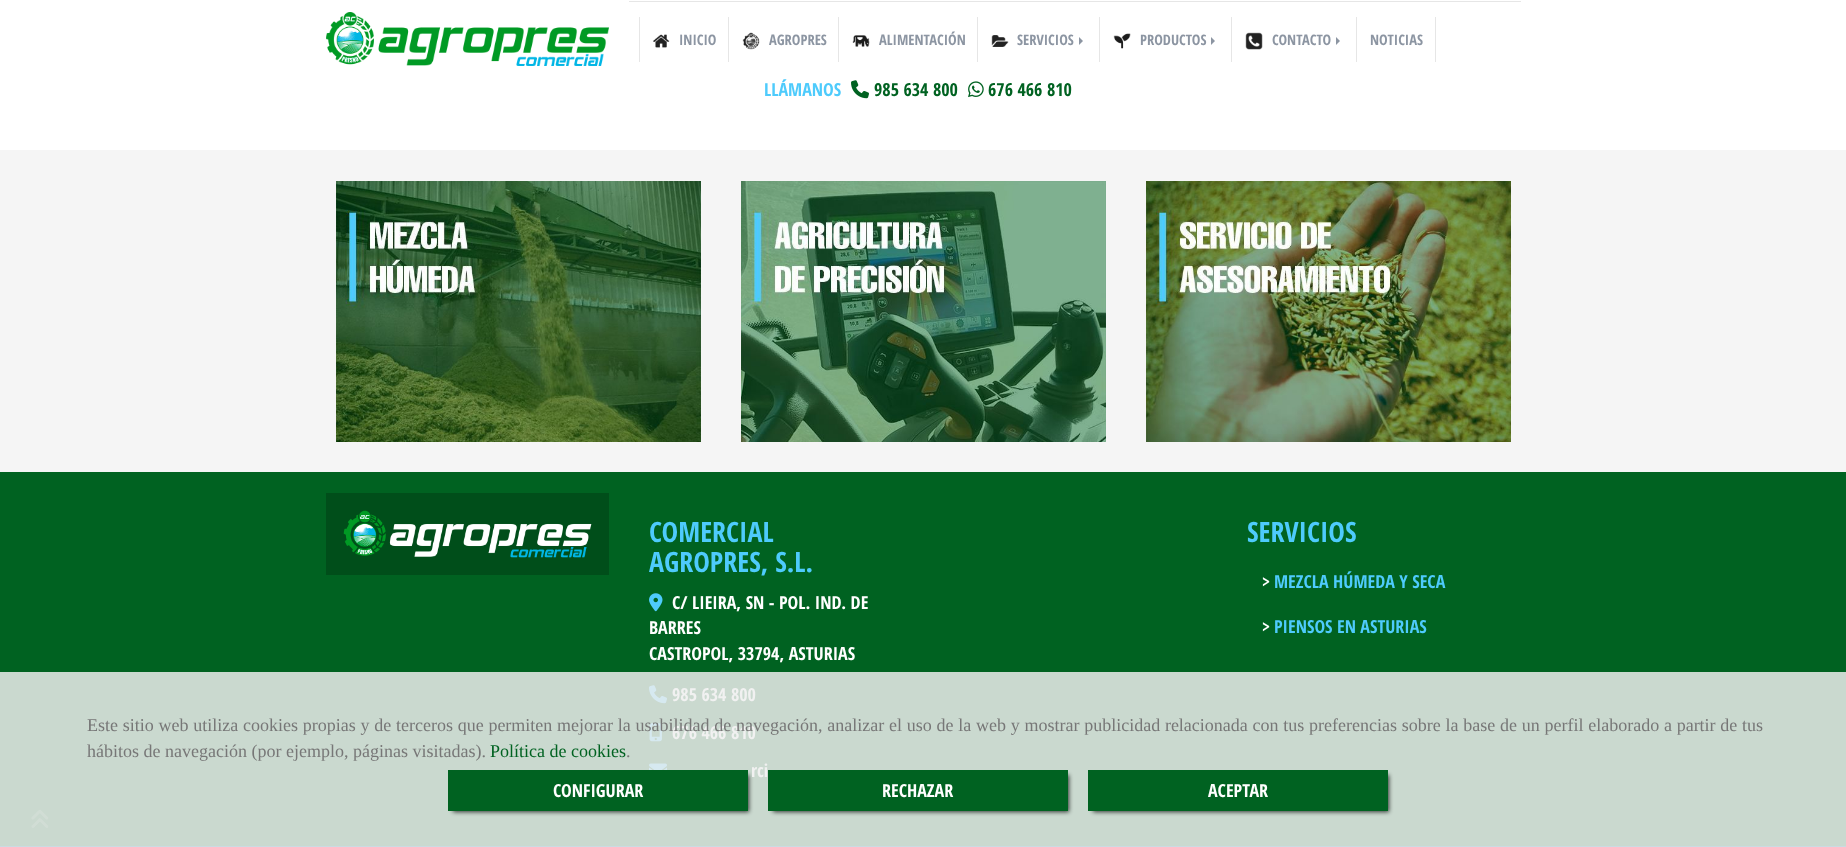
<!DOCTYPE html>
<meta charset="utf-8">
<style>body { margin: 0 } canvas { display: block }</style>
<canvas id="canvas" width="1846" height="847"></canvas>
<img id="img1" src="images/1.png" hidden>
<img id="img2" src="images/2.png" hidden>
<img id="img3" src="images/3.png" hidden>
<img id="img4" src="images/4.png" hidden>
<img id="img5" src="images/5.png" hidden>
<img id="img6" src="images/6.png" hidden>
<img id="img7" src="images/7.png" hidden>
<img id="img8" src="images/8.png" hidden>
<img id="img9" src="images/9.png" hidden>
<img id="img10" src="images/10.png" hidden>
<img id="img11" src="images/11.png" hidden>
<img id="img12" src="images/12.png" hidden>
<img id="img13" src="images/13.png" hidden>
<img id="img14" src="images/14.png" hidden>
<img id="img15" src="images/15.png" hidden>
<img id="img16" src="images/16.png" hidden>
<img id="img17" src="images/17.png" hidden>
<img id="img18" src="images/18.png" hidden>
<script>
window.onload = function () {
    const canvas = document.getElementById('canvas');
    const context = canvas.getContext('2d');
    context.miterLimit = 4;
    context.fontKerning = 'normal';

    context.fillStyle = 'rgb(255, 255, 255)';
    context.fillRect(0, 0, 1846, 847);
    context.drawImage(document.getElementById('img1'), 326, 12, 283, 54);
    context.fillStyle = 'rgb(230, 230, 230)';
    context.fillRect(629, 1, 892, 1);
    context.fillRect(728, 17, 1, 45);
    context.fillRect(639, 17, 1, 45);
    context.drawImage(document.getElementById('img2'), 653, 34, 17, 14);
    context.fillRect(838, 17, 1, 45);
    context.drawImage(document.getElementById('img3'), 742, 32, 18, 18);
    context.fillRect(977, 17, 1, 45);
    context.drawImage(document.getElementById('img4'), 852, 35, 18, 12);
    context.fillRect(1099, 17, 1, 45);
    context.drawImage(document.getElementById('img5'), 991, 35, 18, 12);
    context.fillStyle = 'rgb(140, 149, 162)';
    context.beginPath();
    context.moveTo(1079, 45);
    context.lineTo(1079, 37);
    context.lineTo(1083, 41);
    context.closePath();
    context.fill();
    context.fillStyle = 'rgb(230, 230, 230)';
    context.fillRect(1231, 17, 1, 45);
    context.drawImage(document.getElementById('img6'), 1113, 33, 18, 16);
    context.fillStyle = 'rgb(140, 149, 162)';
    context.beginPath();
    context.moveTo(1211, 45);
    context.lineTo(1211, 37);
    context.lineTo(1215, 41);
    context.closePath();
    context.fill();
    context.fillStyle = 'rgb(230, 230, 230)';
    context.fillRect(1356, 17, 1, 45);
    context.drawImage(document.getElementById('img7'), 1245, 32, 18, 18);
    context.fillStyle = 'rgb(140, 149, 162)';
    context.beginPath();
    context.moveTo(1336, 45);
    context.lineTo(1336, 37);
    context.lineTo(1340, 41);
    context.closePath();
    context.fill();
    context.fillStyle = 'rgb(230, 230, 230)';
    context.fillRect(1435, 17, 1, 45);
    context.drawImage(document.getElementById('img8'), 851, 80, 18, 19);
    context.drawImage(document.getElementById('img9'), 968, 81, 16, 17);
    context.fillStyle = 'rgb(245, 245, 245)';
    context.fillRect(0, 150, 1846, 322);
    context.drawImage(document.getElementById('img10'), 336, 181, 365, 261);
    context.drawImage(document.getElementById('img11'), 741, 181, 365, 261);
    context.drawImage(document.getElementById('img12'), 1146, 181, 365, 261);
    context.fillStyle = 'rgb(0, 98, 33)';
    context.fillRect(0, 472, 1846, 200);
    context.fillStyle = 'rgb(202, 217, 207)';
    context.fillRect(0, 672, 1846, 174);
    context.fillStyle = 'rgb(0, 78, 26)';
    context.fillRect(326, 493, 283, 82);
    context.drawImage(document.getElementById('img13'), 343, 510, 249, 48);
    context.drawImage(document.getElementById('img14'), 649, 593, 14, 19);
    context.drawImage(document.getElementById('img15'), 649, 685, 18, 19);
    context.drawImage(document.getElementById('img16'), 649, 723, 13, 19);
    context.drawImage(document.getElementById('img17'), 649, 763, 18, 7);
    context.fillStyle = 'rgba(0, 0, 0, 0.75)';
    context.filter = 'blur(2px)';
    context.beginPath();
    context.rect(453, 775, 296, 37);
    context.fill();
    context.filter = 'none';
    context.fillStyle = 'rgb(0, 98, 33)';
    context.fillRect(448, 770, 300, 41);
    context.fillStyle = 'rgba(0, 0, 0, 0.75)';
    context.filter = 'blur(2px)';
    context.beginPath();
    context.rect(773, 775, 296, 37);
    context.fill();
    context.filter = 'none';
    context.fillStyle = 'rgb(0, 98, 33)';
    context.fillRect(768, 770, 300, 41);
    context.fillStyle = 'rgba(0, 0, 0, 0.75)';
    context.filter = 'blur(2px)';
    context.beginPath();
    context.rect(1093, 775, 296, 37);
    context.fill();
    context.filter = 'none';
    context.fillStyle = 'rgb(0, 98, 33)';
    context.fillRect(1088, 770, 300, 41);
    context.drawImage(document.getElementById('img18'), 31, 809, 18, 19);
    context.fillStyle = 'rgb(202, 219, 226)';
    context.fillRect(0, 846, 1846, 1);
    context.font = 'bold 14.5px Open Sans Condensed';
    context.fillStyle = 'rgb(140, 149, 162)';
    context.fillText('INICIO', 679, 45);
    context.fillText('AGROPRES', 769, 45);
    context.fillText('ALIMENTACIÓN', 879, 45);
    context.fillText('SERVICIOS', 1017, 45);
    context.fillText('PRODUCTOS', 1140, 45);
    context.fillText('CONTACTO', 1272, 45);
    context.fillText('NOTICIAS', 1370, 45);
    context.font = 'bold 18px Open Sans Condensed';
    context.fillStyle = 'rgb(78, 203, 252)';
    context.fillText('LLÁMANOS', 764, 96);
    context.fillStyle = 'rgb(0, 98, 33)';
    context.fillText('985 634 800', 874, 96);
    context.fillText('676 466 810', 988, 96);
    context.font = 'bold 28px Open Sans Condensed';
    context.fillStyle = 'rgb(78, 203, 252)';
    context.fillText('COMERCIAL', 649, 542);
    context.fillText('AGROPRES, S.L.', 649, 572);
    context.font = 'bold 18px Open Sans Condensed';
    context.fillStyle = 'rgb(255, 255, 255)';
    context.fillText('C/ LIEIRA, SN - POL. IND. DE', 672, 609);
    context.fillText('BARRES', 649, 634);
    context.fillText('CASTROPOL, 33794, ASTURIAS', 649, 660);
    context.fillStyle = 'rgb(241, 241, 241)';
    context.fillText('985 634 800', 672, 701);
    context.fillText('676 466 810', 672, 739);
    context.fillText('rci', 751, 777);
    context.font = 'bold 28px Open Sans Condensed';
    context.fillStyle = 'rgb(78, 203, 252)';
    context.fillText('SERVICIOS', 1247, 542);
    context.font = 'bold 18px Open Sans Condensed';
    context.fillStyle = 'rgb(255, 255, 255)';
    context.fillText('>', 1262, 588);
    context.fillStyle = 'rgb(78, 203, 252)';
    context.fillText('MEZCLA HÚMEDA Y SECA', 1274, 588);
    context.fillStyle = 'rgb(255, 255, 255)';
    context.fillText('>', 1262, 633);
    context.fillStyle = 'rgb(78, 203, 252)';
    context.fillText('PIENSOS EN ASTURIAS', 1274, 633);
    context.wordSpacing = '0.25px';
    context.font = '18px Liberation Serif';
    context.fillStyle = 'rgb(119, 119, 119)';
    context.fillText('Este sitio web utiliza cookies propias y de terceros que permiten mejorar la usabilidad de navegación, analizar el uso de la web y mostrar publicidad relacionada con tus preferencias sobre la base de un perfil elaborado a partir de tus', 87, 731);
    context.wordSpacing = '0px';
    context.fillText('hábitos de navegación (por ejemplo, páginas visitadas).', 87, 757);
    context.fillStyle = 'rgb(0, 98, 33)';
    context.fillText('Política de cookies', 490, 757);
    context.fillStyle = 'rgb(119, 119, 119)';
    context.fillText('.', 626, 757);
    context.font = 'bold 18px Open Sans Condensed';
    context.fillStyle = 'rgb(255, 255, 255)';
    context.fillText('CONFIGURAR', 553, 797);
    context.fillText('RECHAZAR', 882, 797);
    context.fillText('ACEPTAR', 1208, 797);
};
</script>
